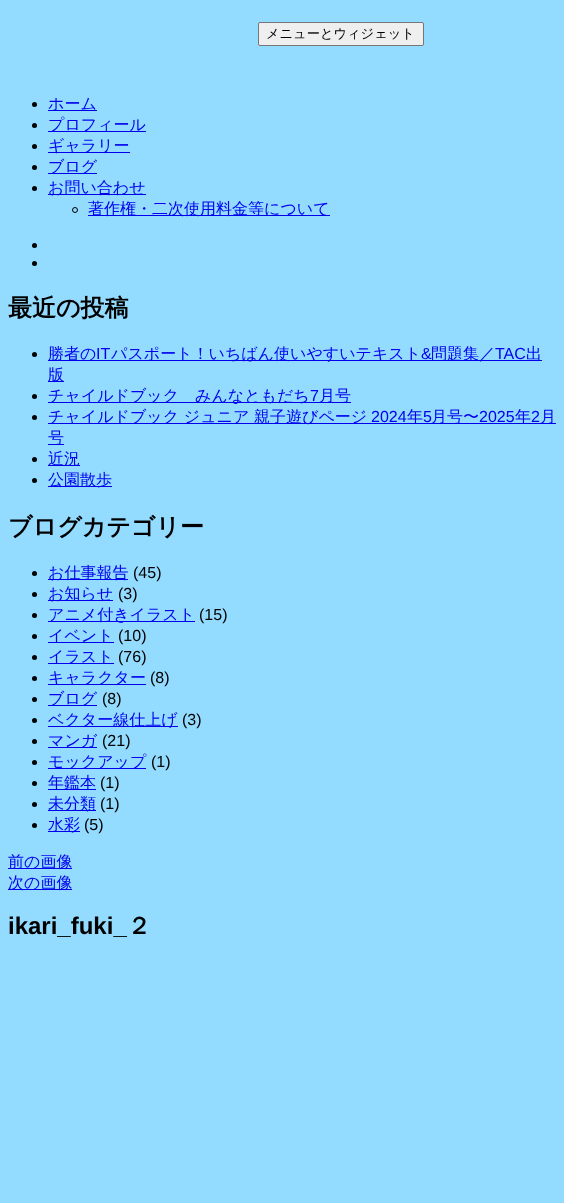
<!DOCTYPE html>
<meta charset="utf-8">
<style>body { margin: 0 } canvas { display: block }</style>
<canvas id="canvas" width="564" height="1203"></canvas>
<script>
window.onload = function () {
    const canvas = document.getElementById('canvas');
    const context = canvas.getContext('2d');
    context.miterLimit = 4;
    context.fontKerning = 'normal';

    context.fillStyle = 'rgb(147, 219, 255)';
    context.fillRect(0, 0, 564, 1203);
    context.fillStyle = 'rgb(239, 239, 239)';
    context.beginPath();
    context.roundRect(258.5, 22.5, 165, 23, 1.5);
    context.fill();
    context.strokeStyle = 'rgb(118, 118, 118)';
    context.stroke();
    context.fillStyle = 'rgb(0, 0, 0)';
    context.beginPath();
    context.arc(34.5, 104.5, 2.5, 0, 2 * Math.PI);
    context.fill();
    context.fillStyle = 'rgb(0, 0, 238)';
    context.fillRect(48, 110, 49, 1);
    context.fillStyle = 'rgb(0, 0, 0)';
    context.beginPath();
    context.arc(34.5, 125.5, 2.5, 0, 2 * Math.PI);
    context.fill();
    context.fillStyle = 'rgb(0, 0, 238)';
    context.fillRect(48, 131, 98, 1);
    context.fillStyle = 'rgb(0, 0, 0)';
    context.beginPath();
    context.arc(34.5, 146.5, 2.5, 0, 2 * Math.PI);
    context.fill();
    context.fillStyle = 'rgb(0, 0, 238)';
    context.fillRect(48, 152, 82, 1);
    context.fillStyle = 'rgb(0, 0, 0)';
    context.beginPath();
    context.arc(34.5, 167.5, 2.5, 0, 2 * Math.PI);
    context.fill();
    context.fillStyle = 'rgb(0, 0, 238)';
    context.fillRect(48, 173, 49, 1);
    context.fillStyle = 'rgb(0, 0, 0)';
    context.beginPath();
    context.arc(34.5, 188.5, 2.5, 0, 2 * Math.PI);
    context.fill();
    context.fillStyle = 'rgb(0, 0, 238)';
    context.fillRect(48, 194, 98, 1);
    context.beginPath();
    context.arc(75, 210, 2.5, 0, 2 * Math.PI);
    context.strokeStyle = 'rgb(0, 0, 0)';
    context.stroke();
    context.fillRect(88, 215, 242, 1);
    context.fillStyle = 'rgb(0, 0, 0)';
    context.beginPath();
    context.arc(34.5, 245.5, 2.5, 0, 2 * Math.PI);
    context.fill();
    context.beginPath();
    context.arc(34.5, 263.5, 2.5, 0, 2 * Math.PI);
    context.fill();
    context.beginPath();
    context.arc(34.5, 354.5, 2.5, 0, 2 * Math.PI);
    context.fill();
    context.fillStyle = 'rgb(0, 0, 238)';
    context.fillRect(48, 360, 494, 1);
    context.fillRect(48, 381, 16, 1);
    context.fillStyle = 'rgb(0, 0, 0)';
    context.beginPath();
    context.arc(34.5, 396.5, 2.5, 0, 2 * Math.PI);
    context.fill();
    context.fillStyle = 'rgb(0, 0, 238)';
    context.fillRect(48, 402, 303, 1);
    context.fillStyle = 'rgb(0, 0, 0)';
    context.beginPath();
    context.arc(34.5, 417.5, 2.5, 0, 2 * Math.PI);
    context.fill();
    context.fillStyle = 'rgb(0, 0, 238)';
    context.fillRect(48, 423, 508, 1);
    context.fillRect(48, 444, 16, 1);
    context.fillStyle = 'rgb(0, 0, 0)';
    context.beginPath();
    context.arc(34.5, 459.5, 2.5, 0, 2 * Math.PI);
    context.fill();
    context.fillStyle = 'rgb(0, 0, 238)';
    context.fillRect(48, 465, 32, 1);
    context.fillStyle = 'rgb(0, 0, 0)';
    context.beginPath();
    context.arc(34.5, 480.5, 2.5, 0, 2 * Math.PI);
    context.fill();
    context.fillStyle = 'rgb(0, 0, 238)';
    context.fillRect(48, 486, 64, 1);
    context.fillStyle = 'rgb(0, 0, 0)';
    context.beginPath();
    context.arc(34.5, 573.5, 2.5, 0, 2 * Math.PI);
    context.fill();
    context.fillStyle = 'rgb(0, 0, 238)';
    context.fillRect(48, 579, 80, 1);
    context.fillStyle = 'rgb(0, 0, 0)';
    context.beginPath();
    context.arc(34.5, 594.5, 2.5, 0, 2 * Math.PI);
    context.fill();
    context.fillStyle = 'rgb(0, 0, 238)';
    context.fillRect(48, 600, 65, 1);
    context.fillStyle = 'rgb(0, 0, 0)';
    context.beginPath();
    context.arc(34.5, 615.5, 2.5, 0, 2 * Math.PI);
    context.fill();
    context.fillStyle = 'rgb(0, 0, 238)';
    context.fillRect(48, 621, 147, 1);
    context.fillStyle = 'rgb(0, 0, 0)';
    context.beginPath();
    context.arc(34.5, 636.5, 2.5, 0, 2 * Math.PI);
    context.fill();
    context.fillStyle = 'rgb(0, 0, 238)';
    context.fillRect(48, 642, 66, 1);
    context.fillStyle = 'rgb(0, 0, 0)';
    context.beginPath();
    context.arc(34.5, 657.5, 2.5, 0, 2 * Math.PI);
    context.fill();
    context.fillStyle = 'rgb(0, 0, 238)';
    context.fillRect(48, 663, 66, 1);
    context.fillStyle = 'rgb(0, 0, 0)';
    context.beginPath();
    context.arc(34.5, 678.5, 2.5, 0, 2 * Math.PI);
    context.fill();
    context.fillStyle = 'rgb(0, 0, 238)';
    context.fillRect(48, 684, 98, 1);
    context.fillStyle = 'rgb(0, 0, 0)';
    context.beginPath();
    context.arc(34.5, 699.5, 2.5, 0, 2 * Math.PI);
    context.fill();
    context.fillStyle = 'rgb(0, 0, 238)';
    context.fillRect(48, 705, 49, 1);
    context.fillStyle = 'rgb(0, 0, 0)';
    context.beginPath();
    context.arc(34.5, 720.5, 2.5, 0, 2 * Math.PI);
    context.fill();
    context.fillStyle = 'rgb(0, 0, 238)';
    context.fillRect(48, 726, 130, 1);
    context.fillStyle = 'rgb(0, 0, 0)';
    context.beginPath();
    context.arc(34.5, 741.5, 2.5, 0, 2 * Math.PI);
    context.fill();
    context.fillStyle = 'rgb(0, 0, 238)';
    context.fillRect(48, 747, 49, 1);
    context.fillStyle = 'rgb(0, 0, 0)';
    context.beginPath();
    context.arc(34.5, 762.5, 2.5, 0, 2 * Math.PI);
    context.fill();
    context.fillStyle = 'rgb(0, 0, 238)';
    context.fillRect(48, 768, 98, 1);
    context.fillStyle = 'rgb(0, 0, 0)';
    context.beginPath();
    context.arc(34.5, 783.5, 2.5, 0, 2 * Math.PI);
    context.fill();
    context.fillStyle = 'rgb(0, 0, 238)';
    context.fillRect(48, 789, 48, 1);
    context.fillStyle = 'rgb(0, 0, 0)';
    context.beginPath();
    context.arc(34.5, 804.5, 2.5, 0, 2 * Math.PI);
    context.fill();
    context.fillStyle = 'rgb(0, 0, 238)';
    context.fillRect(48, 810, 48, 1);
    context.fillStyle = 'rgb(0, 0, 0)';
    context.beginPath();
    context.arc(34.5, 825.5, 2.5, 0, 2 * Math.PI);
    context.fill();
    context.fillStyle = 'rgb(0, 0, 238)';
    context.fillRect(48, 831, 32, 1);
    context.fillRect(8, 868, 64, 1);
    context.fillRect(8, 889, 64, 1);
    context.font = '500 13.25px WenQuanYi Zen Hei';
    context.fillStyle = 'rgb(0, 0, 0)';
    context.fillText('メニューとウィジェット', 266, 38);
    context.font = '500 16px WenQuanYi Zen Hei';
    context.fillStyle = 'rgb(0, 0, 238)';
    context.fillText('ホーム', 48, 109);
    context.fillText('プロフィール', 48, 130);
    context.fillText('ギャラリー', 48, 151);
    context.fillText('ブログ', 48, 172);
    context.fillText('お問い合わせ', 48, 193);
    context.fillText('著作権・二次使用料金等について', 88, 214);
    context.font = 'bold 24px WenQuanYi Zen Hei';
    context.fillStyle = 'rgb(0, 0, 0)';
    context.fillText('最近の投稿', 8, 316);
    context.font = '500 16px WenQuanYi Zen Hei';
    context.fillStyle = 'rgb(0, 0, 238)';
    context.fillText('勝者の', 48, 359);
    context.font = '16px Liberation Sans';
    context.fillText('IT', 96, 359);
    context.font = '500 16px WenQuanYi Zen Hei';
    context.fillText('パスポート！いちばん使いやすいテキスト', 111, 359);
    context.font = '16px Liberation Sans';
    context.fillText('&', 421, 359);
    context.font = '500 16px WenQuanYi Zen Hei';
    context.fillText('問題集／', 431, 359);
    context.font = '16px Liberation Sans';
    context.fillText('TAC', 495, 359);
    context.font = '500 16px WenQuanYi Zen Hei';
    context.fillText('出', 526, 359);
    context.fillText('版', 48, 380);
    context.fillText('チャイルドブック　みんなともだち', 48, 401);
    context.font = '16px Liberation Sans';
    context.fillText('7', 310, 401);
    context.font = '500 16px WenQuanYi Zen Hei';
    context.fillText('月号', 319, 401);
    context.fillText('チャイルドブック ジュニア 親子遊びページ', 48, 422);
    context.font = '16px Liberation Sans';
    context.fillText('2024', 371, 422);
    context.font = '500 16px WenQuanYi Zen Hei';
    context.fillText('年', 407, 422);
    context.font = '16px Liberation Sans';
    context.fillText('5', 423, 422);
    context.font = '500 16px WenQuanYi Zen Hei';
    context.fillText('月号〜', 431, 422);
    context.font = '16px Liberation Sans';
    context.fillText('2025', 479, 422);
    context.font = '500 16px WenQuanYi Zen Hei';
    context.fillText('年', 515, 422);
    context.font = '16px Liberation Sans';
    context.fillText('2', 531, 422);
    context.font = '500 16px WenQuanYi Zen Hei';
    context.fillText('月', 540, 422);
    context.fillText('号', 48, 443);
    context.fillText('近況', 48, 464);
    context.fillText('公園散歩', 48, 485);
    context.font = 'bold 24px WenQuanYi Zen Hei';
    context.fillStyle = 'rgb(0, 0, 0)';
    context.fillText('ブログカテゴリー', 8, 535);
    context.font = '500 16px WenQuanYi Zen Hei';
    context.fillStyle = 'rgb(0, 0, 238)';
    context.fillText('お仕事報告', 48, 578);
    context.font = '16px Liberation Sans';
    context.fillStyle = 'rgb(0, 0, 0)';
    context.fillText('(45)', 133, 578);
    context.font = '500 16px WenQuanYi Zen Hei';
    context.fillStyle = 'rgb(0, 0, 238)';
    context.fillText('お知らせ', 48, 599);
    context.font = '16px Liberation Sans';
    context.fillStyle = 'rgb(0, 0, 0)';
    context.fillText('(3)', 118, 599);
    context.font = '500 16px WenQuanYi Zen Hei';
    context.fillStyle = 'rgb(0, 0, 238)';
    context.fillText('アニメ付きイラスト', 48, 620);
    context.font = '16px Liberation Sans';
    context.fillStyle = 'rgb(0, 0, 0)';
    context.fillText('(15)', 199, 620);
    context.font = '500 16px WenQuanYi Zen Hei';
    context.fillStyle = 'rgb(0, 0, 238)';
    context.fillText('イベント', 48, 641);
    context.font = '16px Liberation Sans';
    context.fillStyle = 'rgb(0, 0, 0)';
    context.fillText('(10)', 118, 641);
    context.font = '500 16px WenQuanYi Zen Hei';
    context.fillStyle = 'rgb(0, 0, 238)';
    context.fillText('イラスト', 48, 662);
    context.font = '16px Liberation Sans';
    context.fillStyle = 'rgb(0, 0, 0)';
    context.fillText('(76)', 118, 662);
    context.font = '500 16px WenQuanYi Zen Hei';
    context.fillStyle = 'rgb(0, 0, 238)';
    context.fillText('キャラクター', 48, 683);
    context.font = '16px Liberation Sans';
    context.fillStyle = 'rgb(0, 0, 0)';
    context.fillText('(8)', 150, 683);
    context.font = '500 16px WenQuanYi Zen Hei';
    context.fillStyle = 'rgb(0, 0, 238)';
    context.fillText('ブログ', 48, 704);
    context.font = '16px Liberation Sans';
    context.fillStyle = 'rgb(0, 0, 0)';
    context.fillText('(8)', 102, 704);
    context.font = '500 16px WenQuanYi Zen Hei';
    context.fillStyle = 'rgb(0, 0, 238)';
    context.fillText('ベクター線仕上げ', 48, 725);
    context.font = '16px Liberation Sans';
    context.fillStyle = 'rgb(0, 0, 0)';
    context.fillText('(3)', 182, 725);
    context.font = '500 16px WenQuanYi Zen Hei';
    context.fillStyle = 'rgb(0, 0, 238)';
    context.fillText('マンガ', 48, 746);
    context.font = '16px Liberation Sans';
    context.fillStyle = 'rgb(0, 0, 0)';
    context.fillText('(21)', 102, 746);
    context.font = '500 16px WenQuanYi Zen Hei';
    context.fillStyle = 'rgb(0, 0, 238)';
    context.fillText('モックアップ', 48, 767);
    context.font = '16px Liberation Sans';
    context.fillStyle = 'rgb(0, 0, 0)';
    context.fillText('(1)', 151, 767);
    context.font = '500 16px WenQuanYi Zen Hei';
    context.fillStyle = 'rgb(0, 0, 238)';
    context.fillText('年鑑本', 48, 788);
    context.font = '16px Liberation Sans';
    context.fillStyle = 'rgb(0, 0, 0)';
    context.fillText('(1)', 100, 788);
    context.font = '500 16px WenQuanYi Zen Hei';
    context.fillStyle = 'rgb(0, 0, 238)';
    context.fillText('未分類', 48, 809);
    context.font = '16px Liberation Sans';
    context.fillStyle = 'rgb(0, 0, 0)';
    context.fillText('(1)', 100, 809);
    context.font = '500 16px WenQuanYi Zen Hei';
    context.fillStyle = 'rgb(0, 0, 238)';
    context.fillText('水彩', 48, 830);
    context.font = '16px Liberation Sans';
    context.fillStyle = 'rgb(0, 0, 0)';
    context.fillText('(5)', 84, 830);
    context.font = '500 16px WenQuanYi Zen Hei';
    context.fillStyle = 'rgb(0, 0, 238)';
    context.fillText('前の画像', 8, 867);
    context.fillText('次の画像', 8, 888);
    context.font = 'bold 24px Liberation Sans';
    context.fillStyle = 'rgb(0, 0, 0)';
    context.fillText('ikari_fuki_', 8, 934);
    context.font = 'bold 24px WenQuanYi Zen Hei';
    context.fillText('２', 127, 934);
};
</script>
